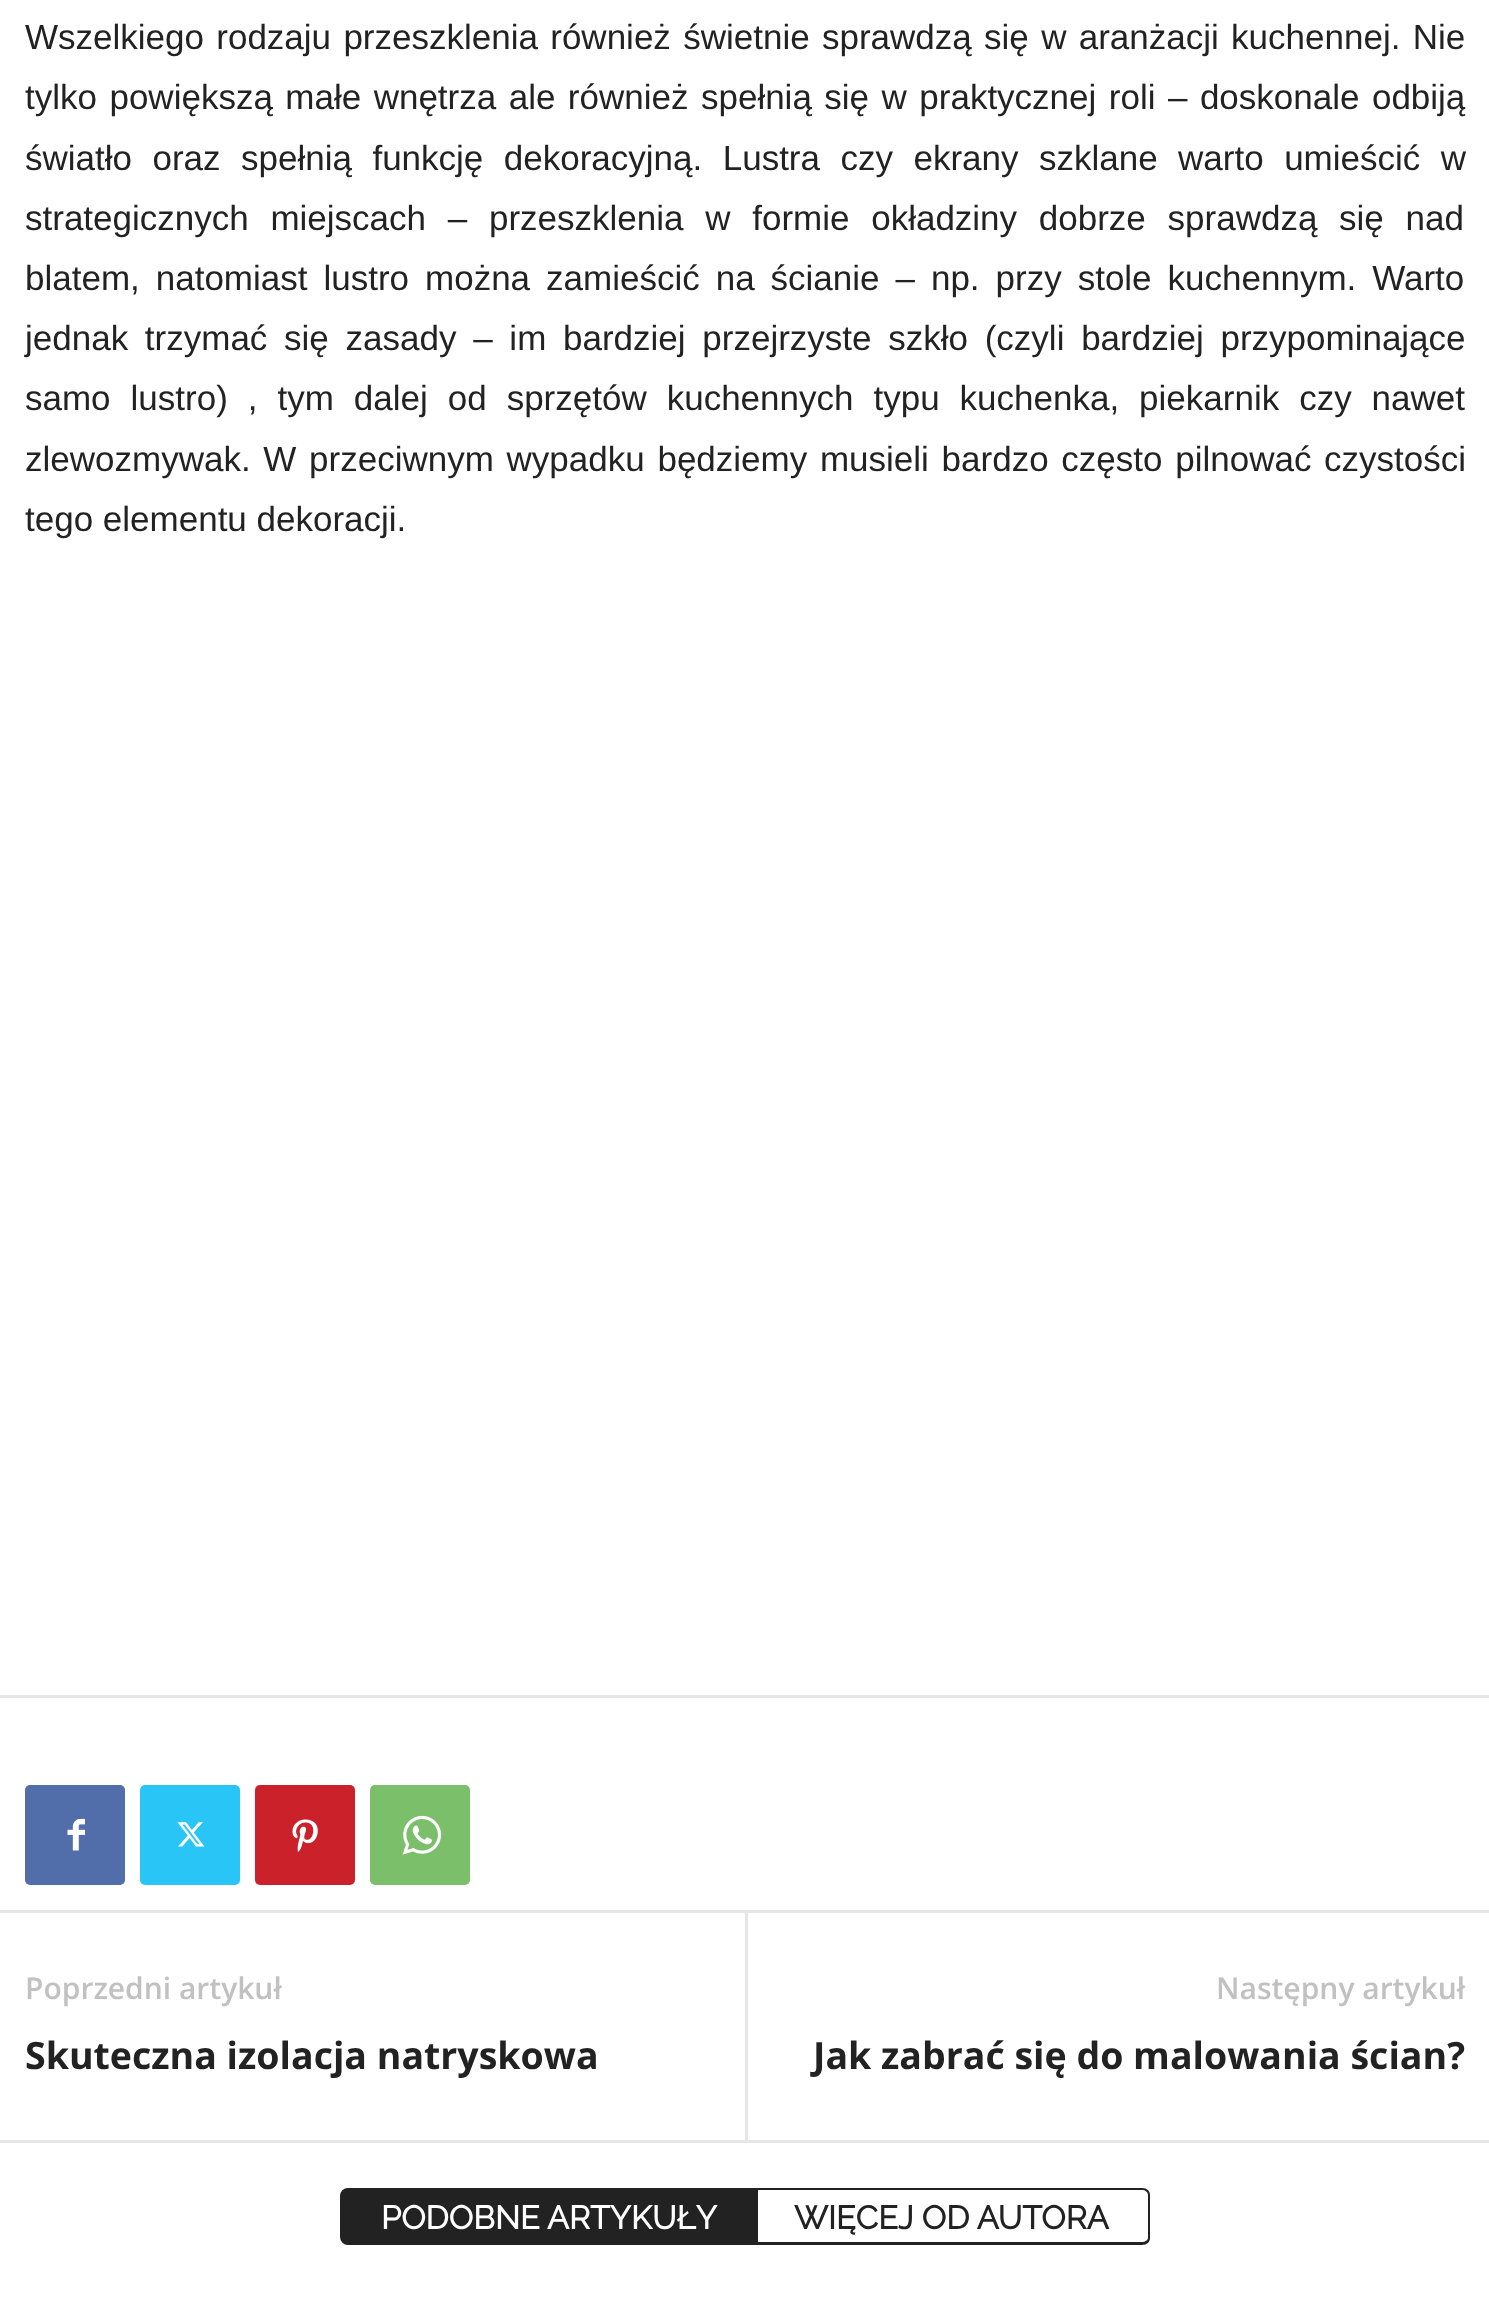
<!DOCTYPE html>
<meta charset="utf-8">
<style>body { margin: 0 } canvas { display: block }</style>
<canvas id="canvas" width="1489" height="2302"></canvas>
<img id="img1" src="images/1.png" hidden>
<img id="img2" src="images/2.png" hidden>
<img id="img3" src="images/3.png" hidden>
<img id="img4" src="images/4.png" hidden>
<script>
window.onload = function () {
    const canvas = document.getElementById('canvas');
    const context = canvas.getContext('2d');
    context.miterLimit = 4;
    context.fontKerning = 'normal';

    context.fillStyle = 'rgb(255, 255, 255)';
    context.fillRect(0, 0, 1489, 2302);
    context.fillStyle = 'rgb(230, 230, 230)';
    context.fillRect(0, 1695, 1489, 3);
    context.fillStyle = 'rgb(81, 110, 171)';
    context.beginPath();
    context.roundRect(25, 1785, 100, 100, 5);
    context.fill();
    context.drawImage(document.getElementById('img1'), 67, 1818, 18, 33);
    context.fillStyle = 'rgb(41, 197, 246)';
    context.beginPath();
    context.roundRect(140, 1785, 100, 100, 5);
    context.fill();
    context.drawImage(document.getElementById('img2'), 177, 1822, 28, 25);
    context.fillStyle = 'rgb(202, 33, 42)';
    context.beginPath();
    context.roundRect(255, 1785, 100, 100, 5);
    context.fill();
    context.drawImage(document.getElementById('img3'), 292, 1819, 26, 33);
    context.fillStyle = 'rgb(123, 191, 106)';
    context.beginPath();
    context.roundRect(370, 1785, 100, 100, 5);
    context.fill();
    context.drawImage(document.getElementById('img4'), 402, 1815, 40, 40);
    context.fillStyle = 'rgb(230, 230, 230)';
    context.fillRect(0, 1910, 1489, 3);
    context.fillRect(745, 1913, 3, 227);
    context.fillRect(0, 2140, 1489, 3);
    context.fillStyle = 'rgb(34, 34, 34)';
    context.beginPath();
    context.roundRect(341.5, 2189.5, 415, 54, [6.5, 0, 0, 6.5]);
    context.fill();
    context.strokeStyle = 'rgb(34, 34, 34)';
    context.lineWidth = 3;
    context.stroke();
    context.beginPath();
    context.moveTo(758, 2188);
    context.lineTo(1142, 2188);
    context.bezierCurveTo(1147, 2188, 1150, 2191, 1150, 2195);
    context.lineTo(1150, 2238);
    context.bezierCurveTo(1150, 2242, 1147, 2245, 1142, 2245);
    context.lineTo(758, 2245);
    context.closePath();
    context.moveTo(758, 2190);
    context.lineTo(1142, 2190);
    context.bezierCurveTo(1145, 2190, 1148, 2192, 1148, 2195);
    context.lineTo(1148, 2238);
    context.bezierCurveTo(1148, 2240, 1145, 2242, 1142, 2242);
    context.lineTo(758, 2242);
    context.closePath();
    context.fill('evenodd');
    context.wordSpacing = '2.6px';
    context.font = '35px Liberation Sans';
    context.fillText('Wszelkiego rodzaju przeszklenia również świetnie sprawdzą się w aranżacji kuchennej. Nie', 25, 49);
    context.wordSpacing = '2.75px';
    context.fillText('tylko powiększą małe wnętrza ale również spełnią się w praktycznej roli – doskonale odbiją', 25, 109);
    context.wordSpacing = '10.75px';
    context.fillText('światło oraz spełnią funkcję dekoracyjną. Lustra czy ekrany szklane warto umieścić w', 25, 170);
    context.wordSpacing = '12px';
    context.fillText('strategicznych miejscach – przeszklenia w formie okładziny dobrze sprawdzą się nad', 25, 230);
    context.wordSpacing = '6.25px';
    context.fillText('blatem, natomiast lustro można zamieścić na ścianie – np. przy stole kuchennym. Warto', 25, 290);
    context.wordSpacing = '7px';
    context.fillText('jednak trzymać się zasady – im bardziej przejrzyste szkło (czyli bardziej przypominające', 25, 350);
    context.wordSpacing = '10.25px';
    context.fillText('samo lustro) , tym dalej od sprzętów kuchennych typu kuchenka, piekarnik czy nawet', 25, 410);
    context.wordSpacing = '3px';
    context.fillText('zlewozmywak. W przeciwnym wypadku będziemy musieli bardzo często pilnować czystości', 25, 471);
    context.wordSpacing = '0px';
    context.fillText('tego elementu dekoracji.', 25, 531);
    context.font = '600 30px Open Sans';
    context.fillStyle = 'rgb(193, 193, 193)';
    context.fillText('Poprzedni artykuł', 25, 1999);
    context.font = 'bold 37.5px Open Sans';
    context.fillStyle = 'rgb(34, 34, 34)';
    context.fillText('Skuteczna izolacja natryskowa', 25, 2069);
    context.font = '600 30px Open Sans';
    context.fillStyle = 'rgb(193, 193, 193)';
    context.fillText('Następny artykuł', 1216, 1999);
    context.font = 'bold 37.5px Open Sans';
    context.fillStyle = 'rgb(34, 34, 34)';
    context.fillText('Jak zabrać się do malowania ścian?', 813, 2069);
    context.font = 'bold 32.5px Raleway';
    context.fillStyle = 'rgb(255, 255, 255)';
    context.fillText('PODOBNE ARTYKUŁY', 381, 2229);
    context.fillStyle = 'rgb(34, 34, 34)';
    context.fillText('WIĘCEJ OD AUTORA', 794, 2229);
};
</script>
